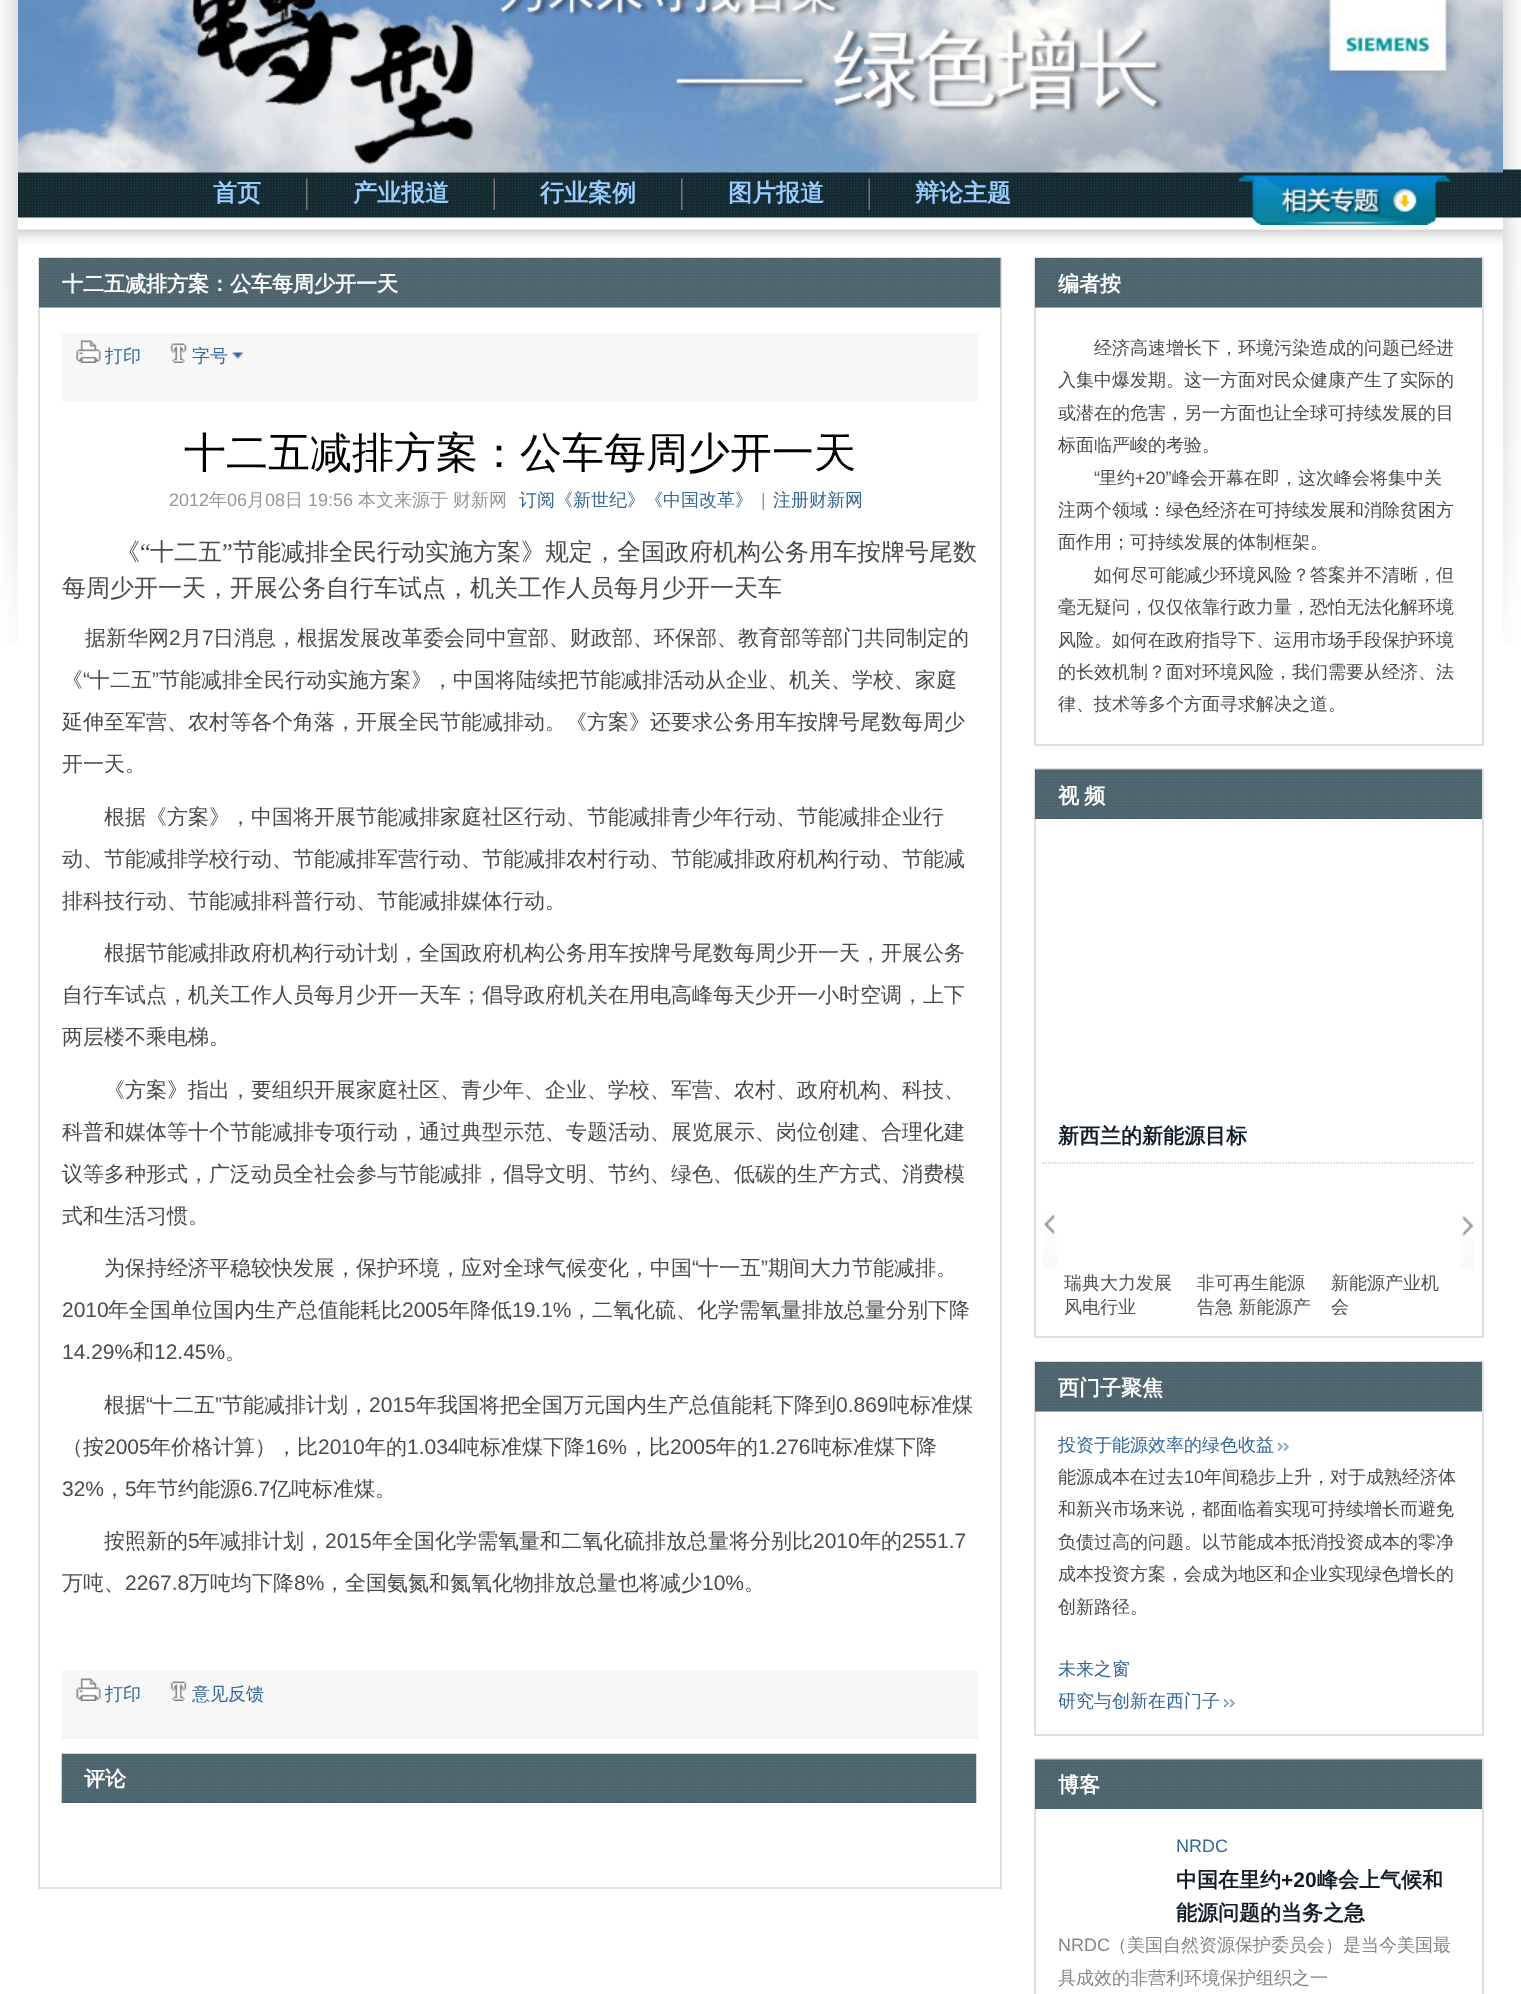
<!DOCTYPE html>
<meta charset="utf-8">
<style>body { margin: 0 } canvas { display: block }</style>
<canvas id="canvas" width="1521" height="1994"></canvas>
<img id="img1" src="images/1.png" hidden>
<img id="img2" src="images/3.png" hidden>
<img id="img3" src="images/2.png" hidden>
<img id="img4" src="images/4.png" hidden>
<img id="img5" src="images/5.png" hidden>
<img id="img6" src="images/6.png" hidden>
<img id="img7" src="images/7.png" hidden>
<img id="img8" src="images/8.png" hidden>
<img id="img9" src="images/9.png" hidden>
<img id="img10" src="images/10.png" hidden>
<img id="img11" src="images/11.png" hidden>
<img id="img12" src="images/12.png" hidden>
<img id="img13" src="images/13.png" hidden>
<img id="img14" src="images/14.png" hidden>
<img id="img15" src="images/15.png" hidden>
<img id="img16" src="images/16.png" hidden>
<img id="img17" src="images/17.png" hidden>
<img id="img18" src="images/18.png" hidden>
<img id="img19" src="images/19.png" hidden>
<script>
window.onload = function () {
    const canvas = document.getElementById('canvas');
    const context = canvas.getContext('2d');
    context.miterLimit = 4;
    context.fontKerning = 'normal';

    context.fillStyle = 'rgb(255, 255, 255)';
    context.fillRect(0, 0, 1521, 1994);
    context.drawImage(document.getElementById('img1'), 0, 0, 1521, 643);
    context.fillRect(18, 217, 1485, 426);
    context.drawImage(document.getElementById('img2'), 18, 169, 1503, 49);
    context.drawImage(document.getElementById('img3'), 18, 0, 1485, 173);
    context.drawImage(document.getElementById('img4'), 306, 178, 2, 32);
    context.drawImage(document.getElementById('img5'), 493, 178, 2, 32);
    context.drawImage(document.getElementById('img4'), 681, 178, 2, 32);
    context.drawImage(document.getElementById('img5'), 868, 178, 2, 32);
    context.drawImage(document.getElementById('img6'), 1238, 175, 213, 50);
    context.drawImage(document.getElementById('img7'), 18, 229, 1485, 15);
    context.strokeStyle = 'rgb(223, 223, 223)';
    context.lineWidth = 2;
    context.strokeRect(39, 258, 962, 1630);
    context.drawImage(document.getElementById('img8'), 39, 258, 962, 50);
    context.fillStyle = 'rgb(247, 247, 247)';
    context.fillRect(62, 333, 916, 66);
    context.fillStyle = 'rgb(245, 245, 245)';
    context.fillRect(62, 399, 916, 2);
    context.drawImage(document.getElementById('img9'), 76, 340, 25, 23);
    context.drawImage(document.getElementById('img10'), 170, 343, 17, 20);
    context.drawImage(document.getElementById('img11'), 232, 352, 11, 7);
    context.fillStyle = 'rgb(247, 247, 247)';
    context.fillRect(62, 1671, 916, 66);
    context.fillStyle = 'rgb(245, 245, 245)';
    context.fillRect(62, 1737, 916, 2);
    context.drawImage(document.getElementById('img9'), 76, 1678, 25, 23);
    context.drawImage(document.getElementById('img10'), 170, 1681, 17, 20);
    context.drawImage(document.getElementById('img12'), 61, 1793, 916, 9);
    context.drawImage(document.getElementById('img13'), 61, 1753, 916, 50);
    context.strokeRect(1035, 258, 448, 487);
    context.drawImage(document.getElementById('img14'), 1035, 258, 447, 50);
    context.strokeRect(1035, 769, 448, 568);
    context.drawImage(document.getElementById('img15'), 1035, 769, 447, 50);
    context.beginPath();
    context.moveTo(1042.5, 1163);
    context.lineTo(1474.5, 1163);
    context.strokeStyle = 'rgb(205, 205, 205)';
    context.lineWidth = 1.5;
    context.setLineDash([1.5, 1.5]);
    context.stroke();
    context.drawImage(document.getElementById('img16'), 1043, 1214, 14, 55);
    context.drawImage(document.getElementById('img17'), 1460, 1215, 14, 54);
    context.strokeStyle = 'rgb(223, 223, 223)';
    context.lineWidth = 2;
    context.setLineDash([]);
    context.strokeRect(1035, 1362, 448, 373);
    context.drawImage(document.getElementById('img14'), 1035, 1362, 447, 50);
    context.drawImage(document.getElementById('img18'), 1278, 1443, 11, 8);
    context.drawImage(document.getElementById('img19'), 1224, 1699, 11, 8);
    context.strokeRect(1035, 1759, 448, 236);
    context.drawImage(document.getElementById('img15'), 1035, 1759, 447, 50);
    context.font = 'bold 24px WenQuanYi Zen Hei';
    context.fillStyle = 'rgb(153, 204, 255)';
    context.fillText('首页', 213, 201);
    context.fillText('产业报道', 353, 201);
    context.fillText('行业案例', 540, 201);
    context.fillText('图片报道', 728, 201);
    context.fillText('辩论主题', 915, 201);
    context.font = 'bold 21px WenQuanYi Zen Hei';
    context.fillStyle = 'rgb(255, 255, 255)';
    context.fillText('十二五减排方案：公车每周少开一天', 62, 291);
    context.font = '500 18px WenQuanYi Zen Hei';
    context.fillStyle = 'rgb(51, 102, 153)';
    context.fillText('打印', 105, 362);
    context.fillText('字号', 192, 362);
    context.font = '500 42px WenQuanYi Zen Hei';
    context.fillStyle = 'rgb(0, 0, 0)';
    context.fillText('十二五减排方案：公车每周少开一天', 184, 467);
    context.font = '18px Liberation Sans';
    context.fillStyle = 'rgb(150, 150, 150)';
    context.fillText('2012', 169, 506);
    context.font = '500 18px WenQuanYi Zen Hei';
    context.fillText('年', 209, 506);
    context.font = '18px Liberation Sans';
    context.fillText('06', 227, 506);
    context.font = '500 18px WenQuanYi Zen Hei';
    context.fillText('月', 247, 506);
    context.font = '18px Liberation Sans';
    context.fillText('08', 265, 506);
    context.font = '500 18px WenQuanYi Zen Hei';
    context.fillText('日', 285, 506);
    context.font = '18px Liberation Sans';
    context.fillText('19:56', 308, 506);
    context.font = '500 18px WenQuanYi Zen Hei';
    context.fillText('本文来源于', 358, 506);
    context.fillText('财新网', 453, 506);
    context.fillStyle = 'rgb(51, 102, 153)';
    context.fillText('订阅《新世纪》《中国改革》', 519, 506);
    context.font = '18px Liberation Sans';
    context.fillStyle = 'rgb(150, 150, 150)';
    context.fillText('|', 761, 506);
    context.font = '500 18px WenQuanYi Zen Hei';
    context.fillStyle = 'rgb(51, 102, 153)';
    context.fillText('注册财新网', 773, 506);
    context.font = '500 24px WenQuanYi Zen Hei';
    context.fillStyle = 'rgb(74, 74, 74)';
    context.fillText('《', 116, 560);
    context.font = '24px Liberation Serif';
    context.fillText('“', 140, 560);
    context.font = '500 24px WenQuanYi Zen Hei';
    context.fillText('十二五', 150, 560);
    context.font = '24px Liberation Serif';
    context.fillText('”', 222, 560);
    context.font = '500 24px WenQuanYi Zen Hei';
    context.fillText('节能减排全民行动实施方案》规定，全国政府机构公务用车按牌号尾数', 233, 560);
    context.fillText('每周少开一天，开展公务自行车试点，机关工作人员每月少开一天车', 62, 596);
    context.font = '500 21px WenQuanYi Zen Hei';
    context.fillText('据新华网', 85, 645);
    context.font = '21px Liberation Sans';
    context.fillText('2', 169, 645);
    context.font = '500 21px WenQuanYi Zen Hei';
    context.fillText('月', 181, 645);
    context.font = '21px Liberation Sans';
    context.fillText('7', 202, 645);
    context.font = '500 21px WenQuanYi Zen Hei';
    context.fillText('日消息，根据发展改革委会同中宣部、财政部、环保部、教育部等部门共同制定的', 213, 645);
    context.fillText('《', 62, 687);
    context.font = '21px Liberation Sans';
    context.fillText('“', 83, 687);
    context.font = '500 21px WenQuanYi Zen Hei';
    context.fillText('十二五', 89, 687);
    context.font = '21px Liberation Sans';
    context.fillText('”', 152, 687);
    context.font = '500 21px WenQuanYi Zen Hei';
    context.fillText('节能减排全民行动实施方案》，中国将陆续把节能减排活动从企业、机关、学校、家庭', 159, 687);
    context.fillText('延伸至军营、农村等各个角落，开展全民节能减排动。《方案》还要求公务用车按牌号尾数每周少', 62, 729);
    context.fillText('开一天。', 62, 771);
    context.fillText('根据《方案》，中国将开展节能减排家庭社区行动、节能减排青少年行动、节能减排企业行', 104, 824);
    context.fillText('动、节能减排学校行动、节能减排军营行动、节能减排农村行动、节能减排政府机构行动、节能减', 62, 866);
    context.fillText('排科技行动、节能减排科普行动、节能减排媒体行动。', 62, 908);
    context.fillText('根据节能减排政府机构行动计划，全国政府机构公务用车按牌号尾数每周少开一天，开展公务', 104, 960);
    context.fillText('自行车试点，机关工作人员每月少开一天车；倡导政府机关在用电高峰每天少开一小时空调，上下', 62, 1002);
    context.fillText('两层楼不乘电梯。', 62, 1044);
    context.fillText('《方案》指出，要组织开展家庭社区、青少年、企业、学校、军营、农村、政府机构、科技、', 104, 1097);
    context.fillText('科普和媒体等十个节能减排专项行动，通过典型示范、专题活动、展览展示、岗位创建、合理化建', 62, 1139);
    context.fillText('议等多种形式，广泛动员全社会参与节能减排，倡导文明、节约、绿色、低碳的生产方式、消费模', 62, 1181);
    context.fillText('式和生活习惯。', 62, 1223);
    context.fillText('为保持经济平稳较快发展，保护环境，应对全球气候变化，中国', 104, 1275);
    context.font = '21px Liberation Sans';
    context.fillText('“', 692, 1275);
    context.font = '500 21px WenQuanYi Zen Hei';
    context.fillText('十一五', 698, 1275);
    context.font = '21px Liberation Sans';
    context.fillText('”', 761, 1275);
    context.font = '500 21px WenQuanYi Zen Hei';
    context.fillText('期间大力节能减排。', 768, 1275);
    context.font = '21px Liberation Sans';
    context.fillText('2010', 62, 1317);
    context.font = '500 21px WenQuanYi Zen Hei';
    context.fillText('年全国单位国内生产总值能耗比', 108, 1317);
    context.font = '21px Liberation Sans';
    context.fillText('2005', 402, 1317);
    context.font = '500 21px WenQuanYi Zen Hei';
    context.fillText('年降低', 449, 1317);
    context.font = '21px Liberation Sans';
    context.fillText('19.1%', 512, 1317);
    context.font = '500 21px WenQuanYi Zen Hei';
    context.fillText('，二氧化硫、化学需氧量排放总量分别下降', 571, 1317);
    context.font = '21px Liberation Sans';
    context.fillText('14.29%', 62, 1359);
    context.font = '500 21px WenQuanYi Zen Hei';
    context.fillText('和', 133, 1359);
    context.font = '21px Liberation Sans';
    context.fillText('12.45%', 154, 1359);
    context.font = '500 21px WenQuanYi Zen Hei';
    context.fillText('。', 225, 1359);
    context.fillText('根据', 104, 1412);
    context.font = '21px Liberation Sans';
    context.fillText('“', 146, 1412);
    context.font = '500 21px WenQuanYi Zen Hei';
    context.fillText('十二五', 152, 1412);
    context.font = '21px Liberation Sans';
    context.fillText('”', 215, 1412);
    context.font = '500 21px WenQuanYi Zen Hei';
    context.fillText('节能减排计划，', 222, 1412);
    context.font = '21px Liberation Sans';
    context.fillText('2015', 369, 1412);
    context.font = '500 21px WenQuanYi Zen Hei';
    context.fillText('年我国将把全国万元国内生产总值能耗下降到', 416, 1412);
    context.font = '21px Liberation Sans';
    context.fillText('0.869', 836, 1412);
    context.font = '500 21px WenQuanYi Zen Hei';
    context.fillText('吨标准煤', 889, 1412);
    context.fillText('（按', 62, 1454);
    context.font = '21px Liberation Sans';
    context.fillText('2005', 104, 1454);
    context.font = '500 21px WenQuanYi Zen Hei';
    context.fillText('年价格计算），比', 150, 1454);
    context.font = '21px Liberation Sans';
    context.fillText('2010', 318, 1454);
    context.font = '500 21px WenQuanYi Zen Hei';
    context.fillText('年的', 365, 1454);
    context.font = '21px Liberation Sans';
    context.fillText('1.034', 407, 1454);
    context.font = '500 21px WenQuanYi Zen Hei';
    context.fillText('吨标准煤下降', 459, 1454);
    context.font = '21px Liberation Sans';
    context.fillText('16%', 585, 1454);
    context.font = '500 21px WenQuanYi Zen Hei';
    context.fillText('，比', 628, 1454);
    context.font = '21px Liberation Sans';
    context.fillText('2005', 670, 1454);
    context.font = '500 21px WenQuanYi Zen Hei';
    context.fillText('年的', 716, 1454);
    context.font = '21px Liberation Sans';
    context.fillText('1.276', 758, 1454);
    context.font = '500 21px WenQuanYi Zen Hei';
    context.fillText('吨标准煤下降', 811, 1454);
    context.font = '21px Liberation Sans';
    context.fillText('32%', 62, 1496);
    context.font = '500 21px WenQuanYi Zen Hei';
    context.fillText('，', 104, 1496);
    context.font = '21px Liberation Sans';
    context.fillText('5', 125, 1496);
    context.font = '500 21px WenQuanYi Zen Hei';
    context.fillText('年节约能源', 136, 1496);
    context.font = '21px Liberation Sans';
    context.fillText('6.7', 241, 1496);
    context.font = '500 21px WenQuanYi Zen Hei';
    context.fillText('亿吨标准煤。', 270, 1496);
    context.fillText('按照新的', 104, 1548);
    context.font = '21px Liberation Sans';
    context.fillText('5', 188, 1548);
    context.font = '500 21px WenQuanYi Zen Hei';
    context.fillText('年减排计划，', 199, 1548);
    context.font = '21px Liberation Sans';
    context.fillText('2015', 325, 1548);
    context.font = '500 21px WenQuanYi Zen Hei';
    context.fillText('年全国化学需氧量和二氧化硫排放总量将分别比', 372, 1548);
    context.font = '21px Liberation Sans';
    context.fillText('2010', 813, 1548);
    context.font = '500 21px WenQuanYi Zen Hei';
    context.fillText('年的', 860, 1548);
    context.font = '21px Liberation Sans';
    context.fillText('2551.7', 902, 1548);
    context.font = '500 21px WenQuanYi Zen Hei';
    context.fillText('万吨、', 62, 1590);
    context.font = '21px Liberation Sans';
    context.fillText('2267.8', 125, 1590);
    context.font = '500 21px WenQuanYi Zen Hei';
    context.fillText('万吨均下降', 189, 1590);
    context.font = '21px Liberation Sans';
    context.fillText('8%', 294, 1590);
    context.font = '500 21px WenQuanYi Zen Hei';
    context.fillText('，全国氨氮和氮氧化物排放总量也将减少', 324, 1590);
    context.font = '21px Liberation Sans';
    context.fillText('10%', 702, 1590);
    context.font = '500 21px WenQuanYi Zen Hei';
    context.fillText('。', 744, 1590);
    context.font = '500 18px WenQuanYi Zen Hei';
    context.fillStyle = 'rgb(51, 102, 153)';
    context.fillText('打印', 105, 1700);
    context.fillText('意见反馈', 192, 1700);
    context.font = 'bold 21px WenQuanYi Zen Hei';
    context.fillStyle = 'rgb(255, 255, 255)';
    context.fillText('评论', 84, 1786);
    context.fillText('编者按', 1058, 291);
    context.font = '500 18px WenQuanYi Zen Hei';
    context.fillStyle = 'rgb(74, 74, 74)';
    context.fillText('经济高速增长下，环境污染造成的问题已经进', 1094, 354);
    context.fillText('入集中爆发期。这一方面对民众健康产生了实际的', 1058, 386);
    context.fillText('或潜在的危害，另一方面也让全球可持续发展的目', 1058, 419);
    context.fillText('标面临严峻的考验。', 1058, 451);
    context.font = '18px Liberation Sans';
    context.fillText('“', 1094, 484);
    context.font = '500 18px WenQuanYi Zen Hei';
    context.fillText('里约', 1099, 484);
    context.font = '18px Liberation Sans';
    context.fillText('+20”', 1135, 484);
    context.font = '500 18px WenQuanYi Zen Hei';
    context.fillText('峰会开幕在即，这次峰会将集中关', 1172, 484);
    context.fillText('注两个领域：绿色经济在可持续发展和消除贫困方', 1058, 516);
    context.fillText('面作用；可持续发展的体制框架。', 1058, 548);
    context.fillText('如何尽可能减少环境风险？答案并不清晰，但', 1094, 581);
    context.fillText('毫无疑问，仅仅依靠行政力量，恐怕无法化解环境', 1058, 613);
    context.fillText('风险。如何在政府指导下、运用市场手段保护环境', 1058, 646);
    context.fillText('的长效机制？面对环境风险，我们需要从经济、法', 1058, 678);
    context.fillText('律、技术等多个方面寻求解决之道。', 1058, 710);
    context.wordSpacing = '-1px';
    context.font = 'bold 21px WenQuanYi Zen Hei';
    context.fillStyle = 'rgb(255, 255, 255)';
    context.fillText('视 频', 1058, 803);
    context.wordSpacing = '0px';
    context.fillStyle = 'rgb(19, 29, 39)';
    context.fillText('新西兰的新能源目标', 1058, 1143);
    context.save();
    context.beginPath();
    context.rect(1064, 1263, 121, 56);
    context.clip();
    context.font = '500 18px WenQuanYi Zen Hei';
    context.fillStyle = 'rgb(80, 80, 80)';
    context.fillText('瑞典大力发展', 1064, 1289);
    context.restore();
    context.font = '500 18px WenQuanYi Zen Hei';
    context.fillStyle = 'rgb(80, 80, 80)';
    context.fillText('风电行业', 1064, 1313);
    context.fillText('非可再生能源', 1197, 1289);
    context.fillText('告急 新能源产', 1197, 1313);
    context.fillText('新能源产业机', 1331, 1289);
    context.fillText('会', 1331, 1313);
    context.font = 'bold 21px WenQuanYi Zen Hei';
    context.fillStyle = 'rgb(255, 255, 255)';
    context.fillText('西门子聚焦', 1058, 1395);
    context.font = '500 18px WenQuanYi Zen Hei';
    context.fillStyle = 'rgb(51, 102, 153)';
    context.fillText('投资于能源效率的绿色收益', 1058, 1451);
    context.fillStyle = 'rgb(74, 74, 74)';
    context.fillText('能源成本在过去', 1058, 1483);
    context.font = '18px Liberation Sans';
    context.fillText('10', 1184, 1483);
    context.font = '500 18px WenQuanYi Zen Hei';
    context.fillText('年间稳步上升，对于成熟经济体', 1204, 1483);
    context.fillText('和新兴市场来说，都面临着实现可持续增长而避免', 1058, 1515);
    context.fillText('负债过高的问题。以节能成本抵消投资成本的零净', 1058, 1548);
    context.fillText('成本投资方案，会成为地区和企业实现绿色增长的', 1058, 1580);
    context.fillText('创新路径。', 1058, 1613);
    context.fillStyle = 'rgb(51, 102, 153)';
    context.fillText('未来之窗', 1058, 1675);
    context.fillText('研究与创新在西门子', 1058, 1707);
    context.font = 'bold 21px WenQuanYi Zen Hei';
    context.fillStyle = 'rgb(255, 255, 255)';
    context.fillText('博客', 1058, 1792);
    context.font = '18px Liberation Sans';
    context.fillStyle = 'rgb(51, 102, 153)';
    context.fillText('NRDC', 1176, 1852);
    context.font = 'bold 21px WenQuanYi Zen Hei';
    context.fillStyle = 'rgb(19, 29, 39)';
    context.fillText('中国在里约', 1176, 1887);
    context.font = 'bold 21px Liberation Sans';
    context.fillText('+20', 1281, 1887);
    context.font = 'bold 21px WenQuanYi Zen Hei';
    context.fillText('峰会上气候和', 1317, 1887);
    context.fillText('能源问题的当务之急', 1176, 1920);
    context.font = '18px Liberation Sans';
    context.fillStyle = 'rgb(133, 133, 133)';
    context.fillText('NRDC', 1058, 1951);
    context.font = '500 18px WenQuanYi Zen Hei';
    context.fillText('（美国自然资源保护委员会）是当今美国最', 1109, 1951);
    context.fillText('具成效的非营利环境保护组织之一', 1058, 1984);
};
</script>
